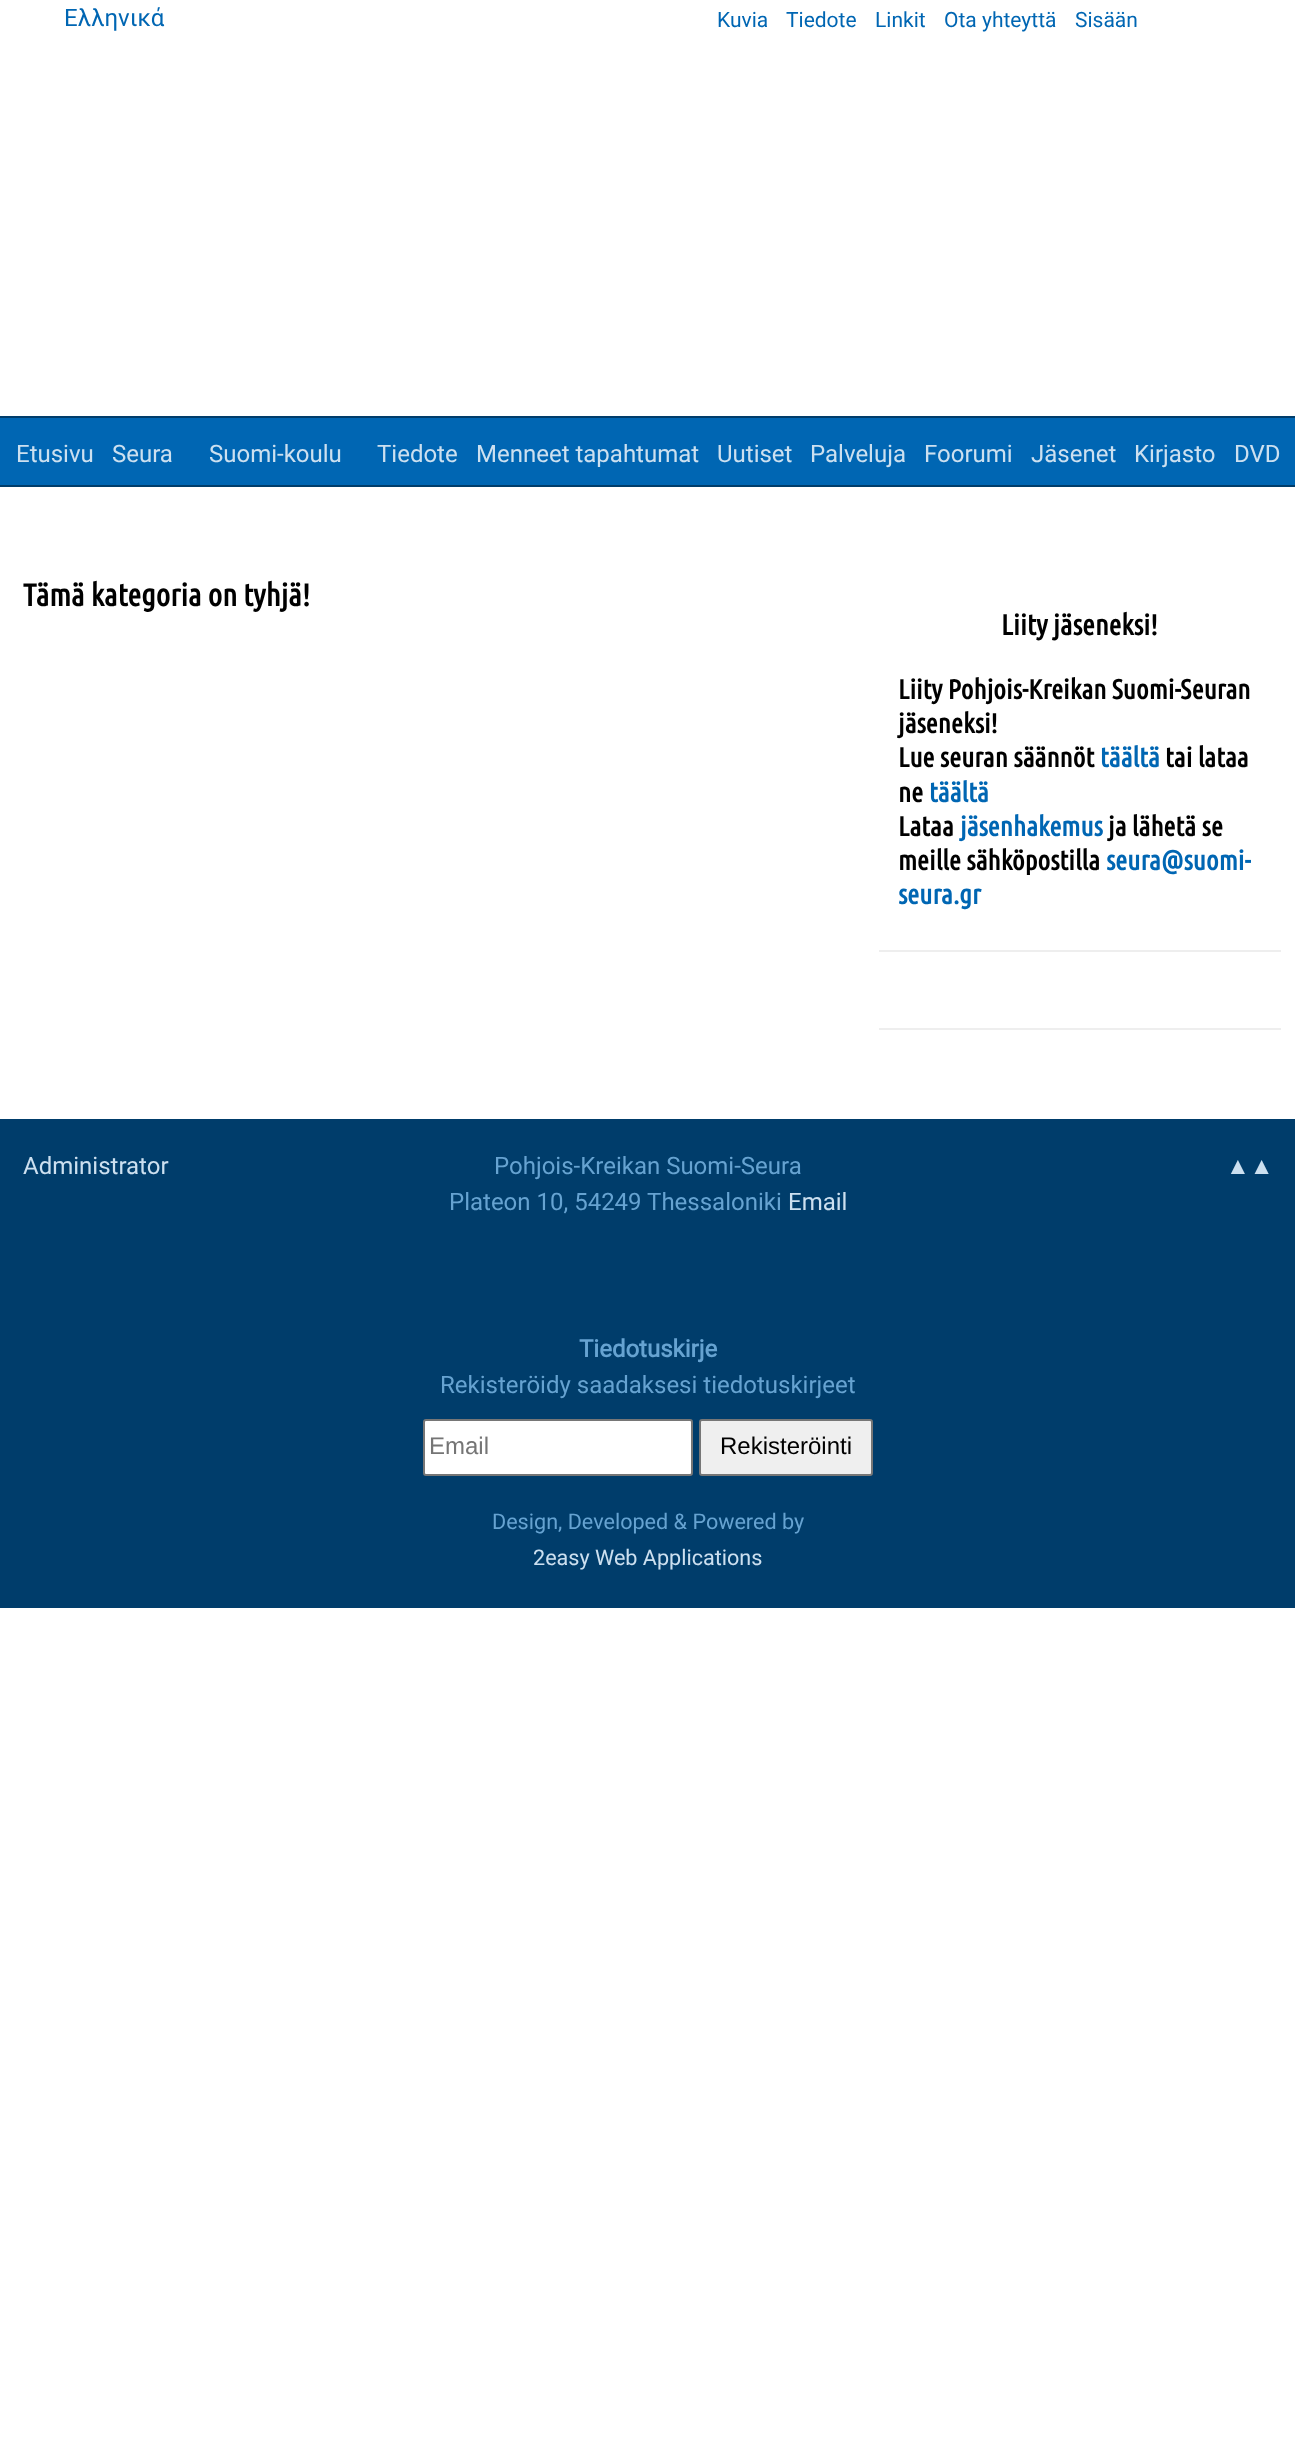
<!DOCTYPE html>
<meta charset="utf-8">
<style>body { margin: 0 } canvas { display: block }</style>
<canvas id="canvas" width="1295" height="2444"></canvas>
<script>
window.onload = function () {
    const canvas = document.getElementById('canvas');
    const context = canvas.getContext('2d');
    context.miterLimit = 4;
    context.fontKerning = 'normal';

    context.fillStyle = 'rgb(255, 255, 255)';
    context.fillRect(0, 0, 1295, 2444);
    context.fillStyle = 'rgb(0, 102, 179)';
    context.fillRect(0, 418, 1295, 67);
    context.fillStyle = 'rgb(0, 61, 107)';
    context.fillRect(0, 416, 1295, 2);
    context.fillRect(0, 485, 1295, 2);
    context.fillStyle = 'rgb(238, 238, 238)';
    context.fillRect(879, 950, 402, 2);
    context.fillRect(879, 1028, 402, 2);
    context.fillStyle = 'rgb(0, 61, 107)';
    context.fillRect(0, 1119, 1295, 489);
    context.fillStyle = 'rgb(255, 255, 255)';
    context.beginPath();
    context.roundRect(424, 1420, 268, 55, 2);
    context.fill();
    context.strokeStyle = 'rgb(118, 118, 118)';
    context.lineWidth = 2;
    context.stroke();
    context.fillStyle = 'rgb(239, 239, 239)';
    context.beginPath();
    context.roundRect(700, 1420, 172, 55, 2);
    context.fill();
    context.stroke();
    context.font = '24px Roboto';
    context.fillStyle = 'rgb(0, 102, 179)';
    context.fillText('Ελληνικά', 64, 26);
    context.font = '21px Roboto';
    context.fillText('Kuvia', 717, 27);
    context.fillText('Tiedote', 786, 27);
    context.fillText('Linkit', 875, 27);
    context.fillText('Ota yhteyttä', 944, 27);
    context.fillText('Sisään', 1075, 27);
    context.font = '24px Roboto';
    context.fillStyle = 'rgb(204, 224, 240)';
    context.fillText('Etusivu', 16, 462);
    context.fillText('Seura', 112, 462);
    context.fillText('Suomi-koulu', 209, 462);
    context.fillText('Tiedote', 377, 462);
    context.fillText('Menneet tapahtumat', 476, 462);
    context.fillText('Uutiset', 717, 462);
    context.fillText('Palveluja', 810, 462);
    context.fillText('Foorumi', 924, 462);
    context.fillText('Jäsenet', 1031, 462);
    context.fillText('Kirjasto', 1134, 462);
    context.fillText('DVD', 1234, 462);
    context.font = 'bold 31.25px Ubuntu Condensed';
    context.fillStyle = 'rgb(0, 0, 0)';
    context.fillText('Tämä kategoria on tyhjä!', 23, 606);
    context.font = 'bold 28.75px Ubuntu Condensed';
    context.fillText('Liity jäseneksi!', 1001, 635);
    context.font = 'bold 27.4px Ubuntu Condensed';
    context.fillText('Liity Pohjois-Kreikan Suomi-Seuran', 898, 699);
    context.fillText('jäseneksi!', 898, 733);
    context.fillText('Lue seuran säännöt', 898, 767);
    context.fillStyle = 'rgb(0, 102, 179)';
    context.fillText('täältä', 1100, 767);
    context.fillStyle = 'rgb(0, 0, 0)';
    context.fillText('tai lataa', 1165, 767);
    context.fillText('ne', 898, 802);
    context.fillStyle = 'rgb(0, 102, 179)';
    context.fillText('täältä', 929, 802);
    context.fillStyle = 'rgb(0, 0, 0)';
    context.fillText('Lataa', 898, 836);
    context.fillStyle = 'rgb(0, 102, 179)';
    context.fillText('jäsenhakemus', 960, 836);
    context.fillStyle = 'rgb(0, 0, 0)';
    context.fillText('ja lähetä se', 1108, 836);
    context.fillText('meille sähköpostilla', 898, 870);
    context.fillStyle = 'rgb(0, 102, 179)';
    context.fillText('seura@suomi-', 1106, 870);
    context.fillText('seura.gr', 898, 904);
    context.font = '24px Roboto';
    context.fillStyle = 'rgb(204, 224, 240)';
    context.fillText('Administrator', 23, 1174);
    context.fillStyle = 'rgb(102, 163, 209)';
    context.fillText('Pohjois-Kreikan Suomi-Seura', 494, 1174);
    context.fillText('Plateon 10, 54249 Thessaloniki', 449, 1210);
    context.fillStyle = 'rgb(204, 224, 240)';
    context.fillText('Email', 788, 1210);
    context.font = '24px Liberation Sans';
    context.fillText('▲▲', 1226, 1174);
    context.font = 'bold 24px Roboto';
    context.fillStyle = 'rgb(102, 163, 209)';
    context.fillText('Tiedotuskirje', 579, 1357);
    context.font = '24px Roboto';
    context.fillText('Rekisteröidy saadaksesi tiedotuskirjeet', 440, 1393);
    context.font = '24px Liberation Sans';
    context.fillStyle = 'rgb(117, 117, 117)';
    context.fillText('Email', 429, 1454);
    context.fillStyle = 'rgb(0, 0, 0)';
    context.fillText('Rekisteröinti', 720, 1454);
    context.font = '21.6px Roboto';
    context.fillStyle = 'rgb(102, 163, 209)';
    context.fillText('Design, Developed & Powered by', 492, 1529);
    context.fillStyle = 'rgb(204, 224, 240)';
    context.fillText('2easy Web Applications', 533, 1565);
};
</script>
